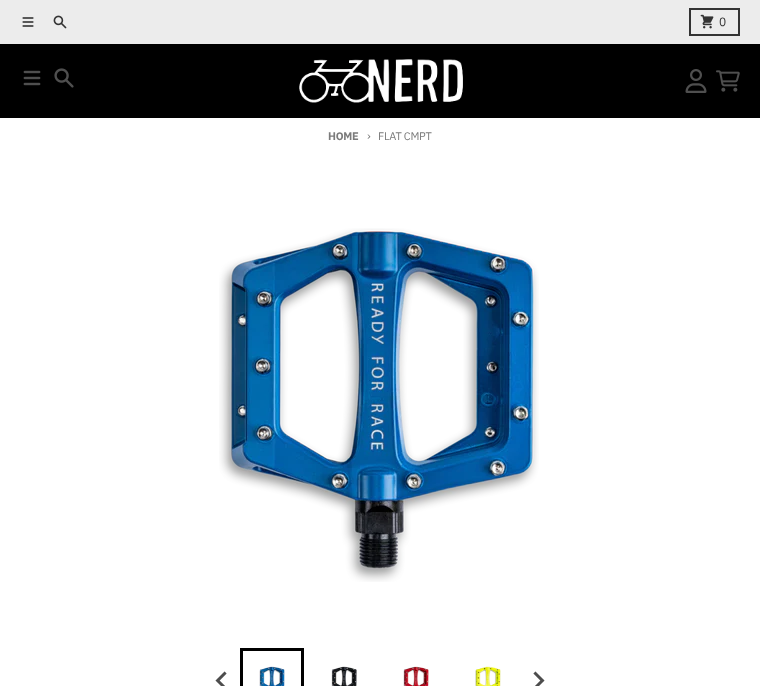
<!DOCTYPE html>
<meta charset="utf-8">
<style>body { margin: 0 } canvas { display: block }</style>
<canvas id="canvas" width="760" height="686"></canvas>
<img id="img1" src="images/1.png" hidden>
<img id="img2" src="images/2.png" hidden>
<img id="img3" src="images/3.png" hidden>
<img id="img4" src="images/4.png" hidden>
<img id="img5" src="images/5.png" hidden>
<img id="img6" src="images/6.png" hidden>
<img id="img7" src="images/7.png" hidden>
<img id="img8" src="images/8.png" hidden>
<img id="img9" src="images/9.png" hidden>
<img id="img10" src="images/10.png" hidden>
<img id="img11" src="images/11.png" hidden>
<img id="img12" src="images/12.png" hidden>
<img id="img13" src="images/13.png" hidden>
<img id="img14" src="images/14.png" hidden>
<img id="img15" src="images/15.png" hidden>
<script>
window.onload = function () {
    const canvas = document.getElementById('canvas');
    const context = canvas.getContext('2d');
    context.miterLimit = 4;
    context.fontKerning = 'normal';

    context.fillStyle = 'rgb(236, 236, 236)';
    context.fillRect(0, 0, 760, 686);
    context.drawImage(document.getElementById('img1'), 22, 17, 12, 10);
    context.drawImage(document.getElementById('img2'), 53, 15, 14, 14);
    context.strokeStyle = 'rgb(51, 51, 51)';
    context.lineWidth = 2;
    context.strokeRect(690, 9, 49, 26);
    context.drawImage(document.getElementById('img3'), 700, 14, 14, 15);
    context.fillStyle = 'rgb(0, 0, 0)';
    context.fillRect(0, 44, 760, 74);
    context.drawImage(document.getElementById('img4'), 23, 70, 18, 16);
    context.drawImage(document.getElementById('img5'), 54, 68, 20, 20);
    context.drawImage(document.getElementById('img6'), 299, 59, 164, 44);
    context.drawImage(document.getElementById('img7'), 685, 69, 22, 24);
    context.drawImage(document.getElementById('img8'), 716, 70, 24, 22);
    context.fillStyle = 'rgb(255, 255, 255)';
    context.fillRect(0, 118, 760, 568);
    context.drawImage(document.getElementById('img9'), 219, 228, 320, 354);
    context.strokeStyle = 'rgb(0, 0, 0)';
    context.lineWidth = 3;
    context.strokeRect(241.5, 649.5, 61, 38);
    context.drawImage(document.getElementById('img10'), 259, 666, 26, 20);
    context.drawImage(document.getElementById('img11'), 331, 666, 26, 20);
    context.drawImage(document.getElementById('img12'), 403, 666, 26, 20);
    context.drawImage(document.getElementById('img13'), 475, 666, 26, 20);
    context.drawImage(document.getElementById('img14'), 215, 671, 12, 15);
    context.drawImage(document.getElementById('img15'), 533, 671, 12, 15);
    context.font = '12px IBM Plex Sans';
    context.fillStyle = 'rgb(51, 51, 51)';
    context.fillText('0', 719, 26);
    context.letterSpacing = '-0.25px';
    context.font = 'bold 11px IBM Plex Sans';
    context.fillStyle = 'rgb(123, 123, 123)';
    context.fillText('HOME', 328, 140);
    context.font = '12px IBM Plex Sans';
    context.fillText('›', 367, 140);
    context.font = '11px IBM Plex Sans';
    context.fillText('FLAT CMPT', 378, 140);
};
</script>
